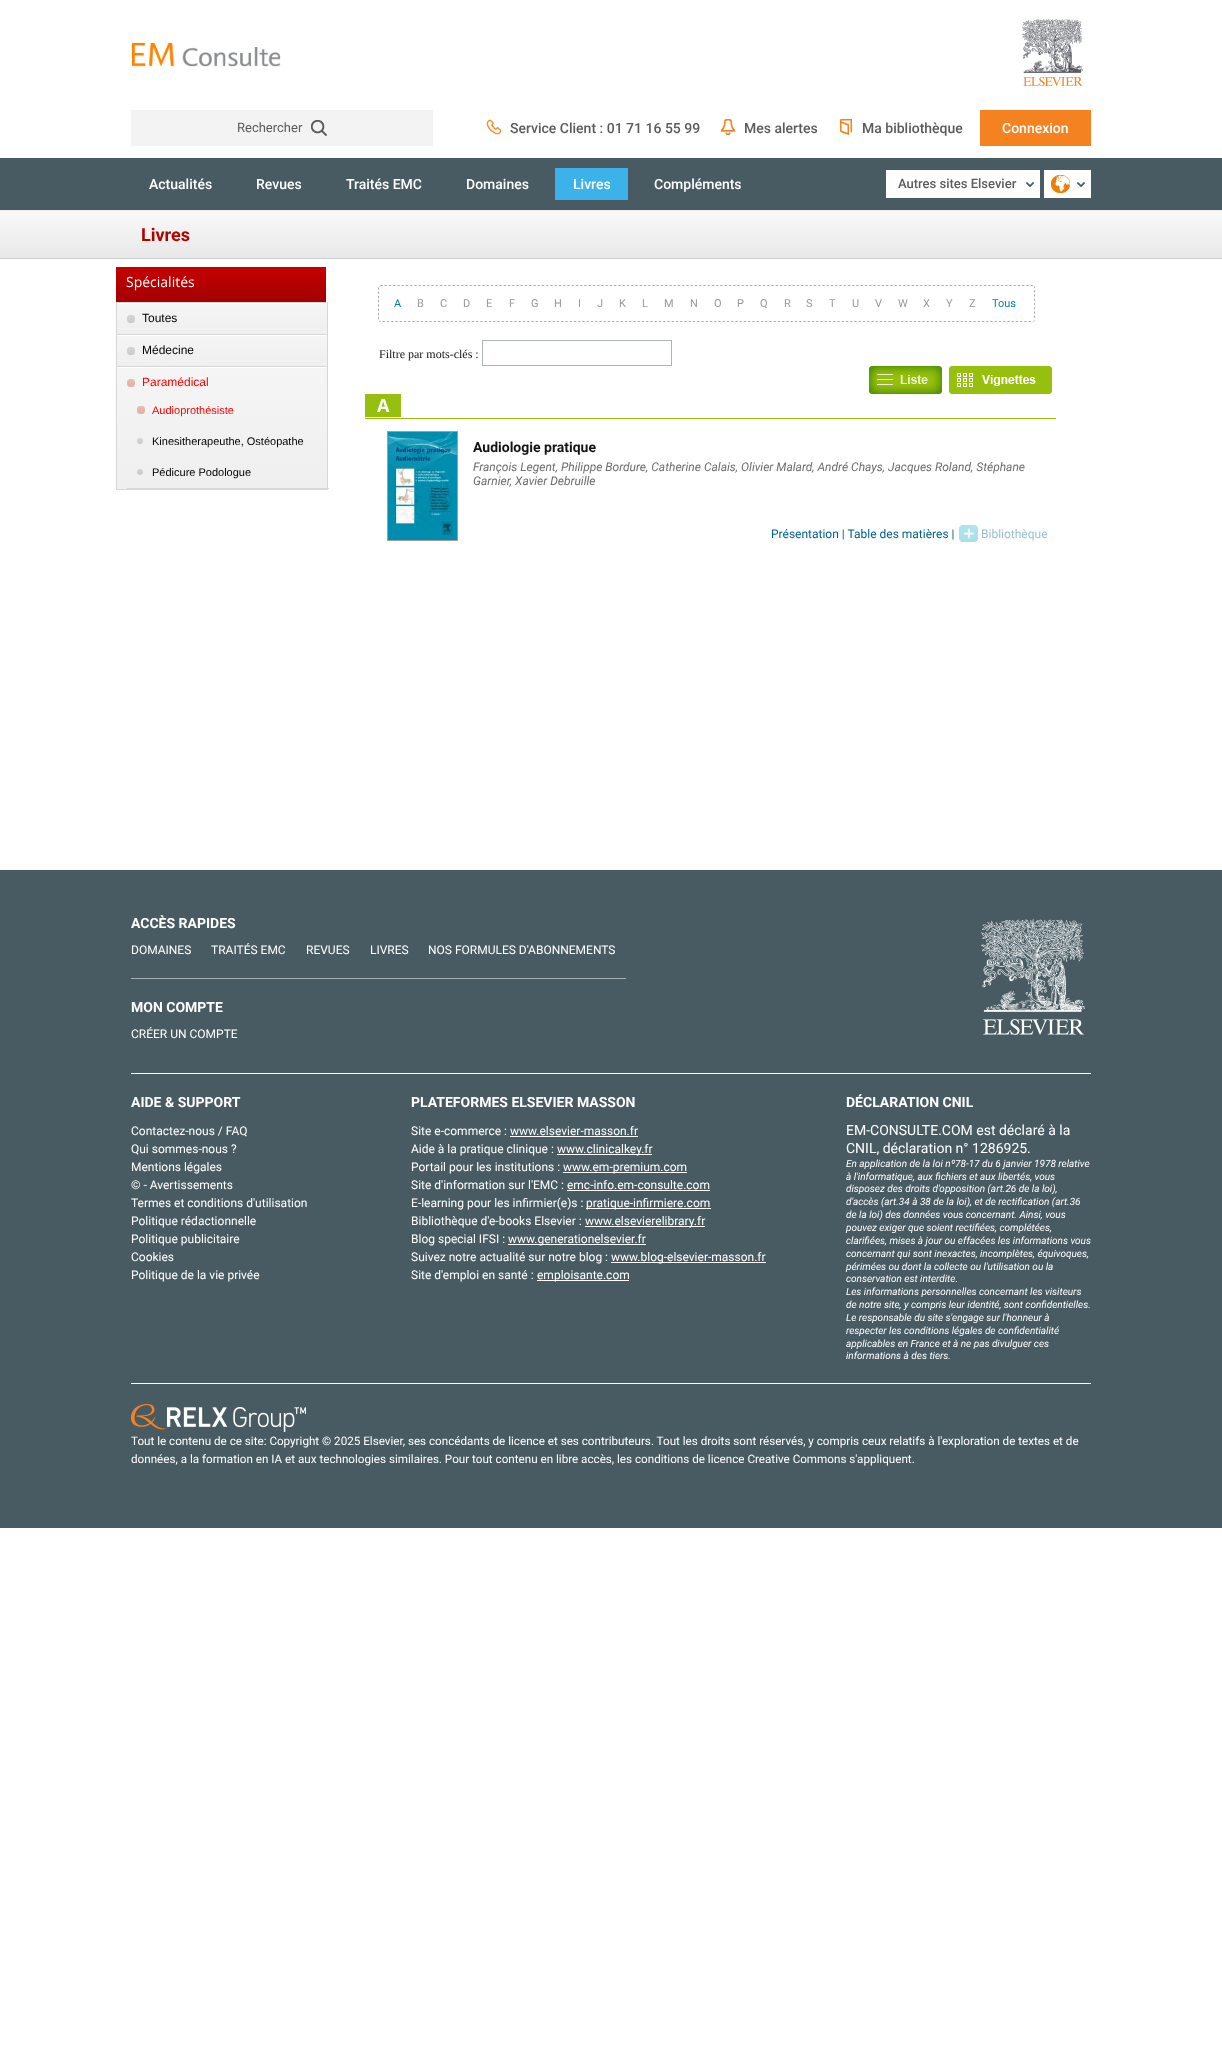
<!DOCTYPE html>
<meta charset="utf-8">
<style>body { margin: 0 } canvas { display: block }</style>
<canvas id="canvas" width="1222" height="2068"></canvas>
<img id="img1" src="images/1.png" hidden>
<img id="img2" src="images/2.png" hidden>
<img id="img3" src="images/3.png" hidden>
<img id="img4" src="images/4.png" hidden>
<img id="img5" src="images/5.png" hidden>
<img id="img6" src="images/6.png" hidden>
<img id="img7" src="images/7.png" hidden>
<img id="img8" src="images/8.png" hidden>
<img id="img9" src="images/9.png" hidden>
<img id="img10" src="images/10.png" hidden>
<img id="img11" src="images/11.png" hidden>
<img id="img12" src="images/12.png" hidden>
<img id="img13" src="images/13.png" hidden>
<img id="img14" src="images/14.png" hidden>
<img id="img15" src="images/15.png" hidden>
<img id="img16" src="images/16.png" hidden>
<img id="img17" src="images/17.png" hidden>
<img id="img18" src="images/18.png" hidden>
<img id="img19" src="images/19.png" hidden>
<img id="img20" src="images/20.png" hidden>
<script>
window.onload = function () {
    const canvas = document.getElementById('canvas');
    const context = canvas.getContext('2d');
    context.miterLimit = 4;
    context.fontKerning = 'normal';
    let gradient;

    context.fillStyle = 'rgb(255, 255, 255)';
    context.fillRect(0, 0, 1222, 2068);
    context.drawImage(document.getElementById('img1'), 131, 42, 150, 25);
    context.drawImage(document.getElementById('img2'), 1022, 19, 61, 67);
    context.fillStyle = 'rgb(243, 243, 243)';
    context.fillRect(131, 110, 302, 36);
    context.drawImage(document.getElementById('img3'), 311, 120, 16, 16);
    context.drawImage(document.getElementById('img4'), 486, 119, 16, 16);
    context.drawImage(document.getElementById('img5'), 721, 119, 15, 16);
    context.drawImage(document.getElementById('img6'), 840, 119, 12, 16);
    context.fillStyle = 'rgb(245, 130, 32)';
    context.fillRect(980, 110, 111, 36);
    context.fillStyle = 'rgb(72, 91, 98)';
    context.fillRect(0, 158, 1222, 52);
    context.fillStyle = 'rgb(59, 178, 232)';
    context.fillRect(555, 168, 73, 32);
    context.fillStyle = 'rgb(255, 255, 255)';
    context.fillRect(886, 170, 154, 28);
    context.drawImage(document.getElementById('img7'), 1026, 182, 8, 5);
    context.fillRect(1044, 170, 47, 28);
    context.drawImage(document.getElementById('img8'), 1051, 175, 19, 18);
    context.drawImage(document.getElementById('img7'), 1077, 182, 8, 5);
    gradient = context.createLinearGradient(611, 211, 611, 258);
    gradient.addColorStop(0, 'rgb(249, 249, 250)');
    gradient.addColorStop(1, 'rgb(232, 232, 232)');
    context.fillStyle = gradient;
    context.fillRect(0, 211, 1222, 47);
    context.fillStyle = 'rgb(237, 237, 237)';
    context.fillRect(0, 210, 1222, 1);
    context.fillStyle = 'rgb(204, 205, 206)';
    context.fillRect(0, 258, 1222, 1);
    context.fillStyle = 'rgb(214, 214, 214)';
    context.fillRect(116, 489, 212, 1);
    gradient = context.createLinearGradient(221, 266, 221, 302);
    gradient.addColorStop(0, 'rgb(199, 0, 0)');
    gradient.addColorStop(1, 'rgb(163, 0, 0)');
    context.fillStyle = gradient;
    context.fillRect(116, 267, 210, 35);
    gradient = context.createLinearGradient(222, 303, 222, 334);
    gradient.addColorStop(0, 'rgb(245, 245, 245)');
    gradient.addColorStop(1, 'rgb(239, 239, 239)');
    context.fillStyle = gradient;
    context.fillRect(117, 304, 210, 30);
    context.fillStyle = 'rgb(214, 214, 214)';
    context.fillRect(116, 302, 212, 1);
    context.fillRect(327, 302, 1, 32);
    context.fillRect(116, 302, 1, 32);
    context.drawImage(document.getElementById('img9'), 127, 315, 8, 8);
    gradient = context.createLinearGradient(222, 335, 222, 366);
    gradient.addColorStop(0, 'rgb(245, 245, 245)');
    gradient.addColorStop(1, 'rgb(239, 239, 239)');
    context.fillStyle = gradient;
    context.fillRect(117, 336, 210, 30);
    context.fillStyle = 'rgb(214, 214, 214)';
    context.fillRect(116, 334, 212, 1);
    context.fillRect(327, 334, 1, 32);
    context.fillRect(116, 334, 1, 32);
    context.drawImage(document.getElementById('img9'), 127, 347, 8, 8);
    gradient = context.createLinearGradient(222, 367, 222, 489);
    gradient.addColorStop(0, 'rgb(245, 245, 245)');
    gradient.addColorStop(1, 'rgb(239, 239, 239)');
    context.fillStyle = gradient;
    context.fillRect(117, 368, 210, 121);
    context.fillStyle = 'rgb(214, 214, 214)';
    context.fillRect(116, 366, 212, 1);
    context.fillRect(327, 366, 1, 123);
    context.fillRect(116, 366, 1, 123);
    context.drawImage(document.getElementById('img10'), 127, 379, 8, 8);
    context.fillRect(127, 488, 202, 1);
    context.drawImage(document.getElementById('img11'), 137, 406, 8, 8);
    context.drawImage(document.getElementById('img12'), 137, 438, 6, 6);
    context.drawImage(document.getElementById('img13'), 137, 469, 6, 6);
    context.drawImage(document.getElementById('img14'), 378, 285, 657, 37);
    context.strokeStyle = 'rgb(173, 180, 178)';
    context.strokeRect(482.5, 340.5, 189, 25);
    context.drawImage(document.getElementById('img15'), 869, 366, 73, 28);
    context.drawImage(document.getElementById('img16'), 949, 366, 103, 28);
    context.fillStyle = 'rgb(151, 191, 14)';
    context.fillRect(365, 418, 691, 1);
    context.fillRect(365, 394, 36, 23);
    context.strokeStyle = 'rgb(159, 159, 159)';
    context.strokeRect(387.5, 431.5, 70, 109);
    context.drawImage(document.getElementById('img17'), 388, 432, 69, 108);
    context.drawImage(document.getElementById('img18'), 959, 525, 19, 17);
    context.fillStyle = 'rgb(72, 91, 98)';
    context.fillRect(0, 870, 1222, 658);
    context.fillStyle = 'rgb(164, 173, 177)';
    context.fillRect(131, 978, 495, 1);
    context.drawImage(document.getElementById('img19'), 981, 919, 104, 116);
    context.fillStyle = 'rgb(255, 255, 255)';
    context.fillRect(131, 1073, 960, 1);
    context.fillRect(510, 1136, 128, 1);
    context.fillRect(557, 1154, 95, 1);
    context.fillRect(563, 1172, 124, 1);
    context.fillRect(567, 1190, 143, 1);
    context.fillRect(586, 1208, 125, 1);
    context.fillRect(585, 1226, 120, 1);
    context.fillRect(508, 1244, 138, 1);
    context.fillRect(611, 1262, 155, 1);
    context.fillRect(537, 1280, 92, 1);
    context.fillRect(131, 1383, 960, 1);
    context.drawImage(document.getElementById('img20'), 131, 1404, 175, 28);
    context.font = '13px Roboto';
    context.fillStyle = 'rgb(90, 90, 90)';
    context.fillText('Rechercher', 237, 132);
    context.font = '500 14px Roboto';
    context.fillText('Service Client : 01 71 16 55 99', 510, 133);
    context.fillText('Mes alertes', 744, 133);
    context.fillText('Ma bibliothèque', 862, 133);
    context.fillStyle = 'rgb(255, 255, 255)';
    context.fillText('Connexion', 1002, 133);
    context.fillText('Actualités', 149, 189);
    context.fillText('Revues', 256, 189);
    context.fillText('Traités EMC', 346, 189);
    context.fillText('Domaines', 466, 189);
    context.fillText('Livres', 573, 189);
    context.fillText('Compléments', 654, 189);
    context.font = '500 13px Roboto';
    context.fillStyle = 'rgb(90, 90, 90)';
    context.fillText('Autres sites Elsevier', 898, 188);
    context.font = 'bold 18px Roboto';
    context.fillStyle = 'rgb(181, 0, 0)';
    context.fillText('Livres', 141, 241);
    context.font = '14px Open Sans';
    context.fillStyle = 'rgb(255, 255, 255)';
    context.fillText('Spécialités', 126, 287);
    context.font = '12px Liberation Sans';
    context.fillStyle = 'rgb(0, 0, 0)';
    context.fillText('Toutes', 142, 322);
    context.fillText('Médecine', 142, 354);
    context.fillStyle = 'rgb(255, 0, 0)';
    context.fillText('Paramédical', 142, 386);
    context.font = '11px Liberation Sans';
    context.fillText('Audioprothésiste', 152, 414);
    context.fillStyle = 'rgb(0, 0, 0)';
    context.fillText('Kinesitherapeuthe, Ostéopathe', 152, 445);
    context.fillText('Pédicure Podologue', 152, 476);
    context.font = '11px Roboto';
    context.fillStyle = 'rgb(1, 133, 153)';
    context.fillText('A', 394, 307);
    context.fillStyle = 'rgb(153, 153, 153)';
    context.fillText('B', 417, 307);
    context.fillText('C', 440, 307);
    context.fillText('D', 463, 307);
    context.fillText('E', 486, 307);
    context.fillText('F', 509, 307);
    context.fillText('G', 531, 307);
    context.fillText('H', 554, 307);
    context.fillText('I', 578, 307);
    context.fillText('J', 597, 307);
    context.fillText('K', 619, 307);
    context.fillText('L', 642, 307);
    context.fillText('M', 664, 307);
    context.fillText('N', 690, 307);
    context.fillText('O', 714, 307);
    context.fillText('P', 737, 307);
    context.fillText('Q', 760, 307);
    context.fillText('R', 784, 307);
    context.fillText('S', 806, 307);
    context.fillText('T', 829, 307);
    context.fillText('U', 852, 307);
    context.fillText('V', 875, 307);
    context.fillText('W', 898, 307);
    context.fillText('X', 923, 307);
    context.fillText('Y', 946, 307);
    context.fillText('Z', 969, 307);
    context.fillStyle = 'rgb(1, 133, 153)';
    context.fillText('Tous', 992, 307);
    context.font = '12px Liberation Serif';
    context.fillStyle = 'rgb(20, 20, 20)';
    context.fillText('Filtre par mots-clés :', 379, 358);
    context.font = 'bold 18px Open Sans';
    context.fillStyle = 'rgb(255, 255, 255)';
    context.fillText('A', 377, 412);
    context.font = 'bold 14px Roboto';
    context.fillStyle = 'rgb(20, 20, 20)';
    context.fillText('Audiologie pratique', 473, 452);
    context.font = 'italic 12px Roboto';
    context.fillStyle = 'rgb(109, 109, 109)';
    context.fillText('François Legent, Philippe Bordure, Catherine Calais, Olivier Malard, André Chays, Jacques Roland, Stéphane', 473, 471);
    context.fillText('Garnier, Xavier Debruille', 473, 485);
    context.font = '12px Roboto';
    context.fillStyle = 'rgb(0, 97, 142)';
    context.fillText('Présentation | Table des matières |', 771, 538);
    context.fillStyle = 'rgb(153, 192, 210)';
    context.fillText('Bibliothèque', 981, 538);
    context.font = 'bold 14px Roboto';
    context.fillStyle = 'rgb(255, 255, 255)';
    context.fillText('ACCÈS RAPIDES', 131, 928);
    context.font = '12px Roboto';
    context.fillText('DOMAINES', 131, 954);
    context.fillText('TRAITÉS EMC', 211, 954);
    context.fillText('REVUES', 306, 954);
    context.fillText('LIVRES', 370, 954);
    context.fillText('NOS FORMULES D\'ABONNEMENTS', 428, 954);
    context.font = 'bold 14px Roboto';
    context.fillText('MON COMPTE', 131, 1012);
    context.font = '12px Roboto';
    context.fillText('CRÉER UN COMPTE', 131, 1038);
    context.font = 'bold 14px Roboto';
    context.fillText('AIDE & SUPPORT', 131, 1107);
    context.font = '12px Roboto';
    context.fillText('Contactez-nous / FAQ', 131, 1135);
    context.fillText('Qui sommes-nous ?', 131, 1153);
    context.fillText('Mentions légales', 131, 1171);
    context.fillText('© - Avertissements', 131, 1189);
    context.fillText('Termes et conditions d\'utilisation', 131, 1207);
    context.fillText('Politique rédactionnelle', 131, 1225);
    context.fillText('Politique publicitaire', 131, 1243);
    context.fillText('Cookies', 131, 1261);
    context.fillText('Politique de la vie privée', 131, 1279);
    context.font = 'bold 14px Roboto';
    context.fillText('PLATEFORMES ELSEVIER MASSON', 411, 1107);
    context.font = '12px Roboto';
    context.fillText('Site e-commerce : www.elsevier-masson.fr', 411, 1135);
    context.fillText('Aide à la pratique clinique :', 411, 1153);
    context.fillText('www.clinicalkey.fr', 557, 1153);
    context.fillText('Portail pour les institutions :', 411, 1171);
    context.fillText('www.em-premium.com', 563, 1171);
    context.fillText('Site d\'information sur l\'EMC : emc-info.em-consulte.com', 411, 1189);
    context.fillText('E-learning pour les infirmier(e)s :', 411, 1207);
    context.fillText('pratique-infirmiere.com', 586, 1207);
    context.fillText('Bibliothèque d\'e-books Elsevier :', 411, 1225);
    context.fillText('www.elsevierelibrary.fr', 585, 1225);
    context.fillText('Blog special IFSI :', 411, 1243);
    context.fillText('www.generationelsevier.fr', 508, 1243);
    context.fillText('Suivez notre actualité sur notre blog :', 411, 1261);
    context.fillText('www.blog-elsevier-masson.fr', 611, 1261);
    context.fillText('Site d\'emploi en santé :', 411, 1279);
    context.fillText('emploisante.com', 537, 1279);
    context.font = 'bold 14px Roboto';
    context.fillText('DÉCLARATION CNIL', 846, 1107);
    context.font = '14px Roboto';
    context.fillText('EM-CONSULTE.COM est déclaré à la', 846, 1135);
    context.fillText('CNIL, déclaration n° 1286925.', 846, 1153);
    context.font = 'italic 10px Roboto';
    context.fillText('En application de la loi nº78-17 du 6 janvier 1978 relative', 846, 1167);
    context.fillText('à l\'informatique, aux fichiers et aux libertés, vous', 846, 1180);
    context.fillText('disposez des droits d\'opposition (art.26 de la loi),', 846, 1192);
    context.fillText('d\'accès (art.34 à 38 de la loi), et de rectification (art.36', 846, 1205);
    context.fillText('de la loi) des données vous concernant. Ainsi, vous', 846, 1218);
    context.fillText('pouvez exiger que soient rectifiées, complétées,', 846, 1231);
    context.fillText('clarifiées, mises à jour ou effacées les informations vous', 846, 1244);
    context.fillText('concernant qui sont inexactes, incomplètes, équivoques,', 846, 1257);
    context.fillText('périmées ou dont la collecte ou l\'utilisation ou la', 846, 1270);
    context.fillText('conservation est interdite.', 846, 1282);
    context.fillText('Les informations personnelles concernant les visiteurs', 846, 1295);
    context.fillText('de notre site, y compris leur identité, sont confidentielles.', 846, 1308);
    context.fillText('Le responsable du site s\'engage sur l\'honneur à', 846, 1321);
    context.fillText('respecter les conditions légales de confidentialité', 846, 1334);
    context.fillText('applicables en France et à ne pas divulguer ces', 846, 1347);
    context.fillText('informations à des tiers.', 846, 1359);
    context.font = '11.67px Roboto';
    context.fillText('Tout le contenu de ce site: Copyright © 2025 Elsevier, ses concédants de licence et ses contributeurs. Tout les droits sont réservés, y compris ceux relatifs à l\'exploration de textes et de', 131, 1445);
    context.fillText('données, a la formation en IA et aux technologies similaires. Pour tout contenu en libre accès, les conditions de licence Creative Commons s\'appliquent.', 131, 1463);
};
</script>
